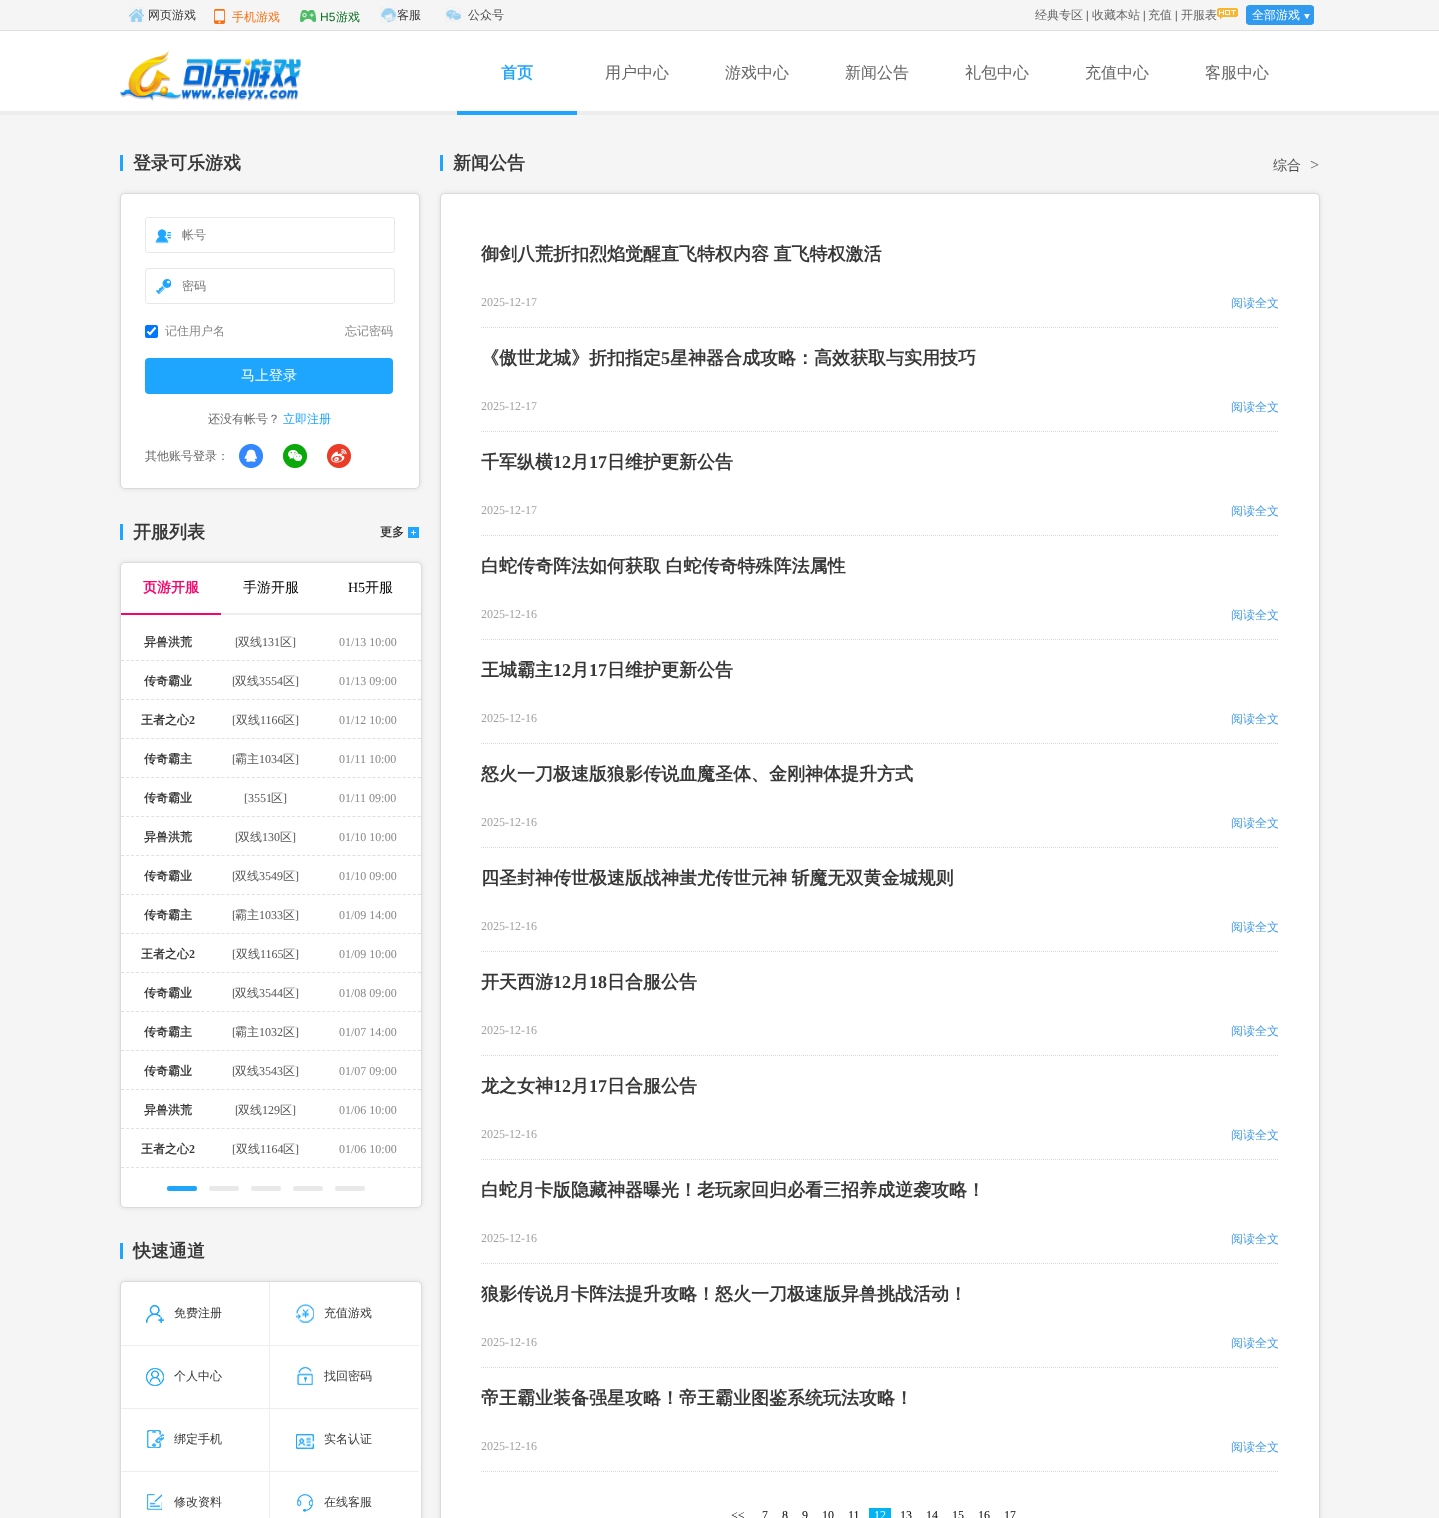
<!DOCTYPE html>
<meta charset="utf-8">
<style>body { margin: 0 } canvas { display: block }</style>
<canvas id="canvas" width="1439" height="1518"></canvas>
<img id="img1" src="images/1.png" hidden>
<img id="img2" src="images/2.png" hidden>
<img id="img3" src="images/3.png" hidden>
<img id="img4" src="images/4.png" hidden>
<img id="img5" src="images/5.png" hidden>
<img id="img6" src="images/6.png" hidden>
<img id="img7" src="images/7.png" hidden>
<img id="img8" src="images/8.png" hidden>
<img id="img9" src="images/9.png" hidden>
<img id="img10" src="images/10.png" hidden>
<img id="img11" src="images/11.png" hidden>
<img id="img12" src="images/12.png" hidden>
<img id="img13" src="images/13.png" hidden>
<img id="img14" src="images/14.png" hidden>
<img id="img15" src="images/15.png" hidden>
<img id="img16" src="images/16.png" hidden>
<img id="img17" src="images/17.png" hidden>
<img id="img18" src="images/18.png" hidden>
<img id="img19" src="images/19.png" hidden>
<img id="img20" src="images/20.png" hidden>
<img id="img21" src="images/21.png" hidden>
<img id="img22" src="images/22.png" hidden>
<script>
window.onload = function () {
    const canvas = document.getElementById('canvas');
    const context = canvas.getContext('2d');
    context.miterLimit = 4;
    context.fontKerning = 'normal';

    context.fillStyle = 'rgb(244, 245, 244)';
    context.fillRect(0, 0, 1439, 1518);
    context.fillStyle = 'rgb(223, 223, 223)';
    context.fillRect(0, 30, 1439, 1);
    context.drawImage(document.getElementById('img1'), 128, 7, 16, 16);
    context.drawImage(document.getElementById('img2'), 214, 9, 11, 15);
    context.drawImage(document.getElementById('img3'), 300, 10, 16, 12);
    context.drawImage(document.getElementById('img4'), 380, 7, 17, 16);
    context.drawImage(document.getElementById('img5'), 445, 7, 17, 16);
    context.drawImage(document.getElementById('img6'), 1217, 8, 21, 11);
    context.drawImage(document.getElementById('img7'), 1246, 5, 68, 20);
    context.fillStyle = 'rgb(255, 255, 255)';
    context.fillRect(0, 31, 1439, 80);
    context.fillStyle = 'rgb(237, 237, 237)';
    context.fillRect(0, 111, 1439, 4);
    context.drawImage(document.getElementById('img8'), 120, 51, 181, 50);
    context.fillStyle = 'rgb(30, 166, 255)';
    context.fillRect(457, 111, 120, 4);
    context.fillRect(120, 155, 3, 16);
    context.fillStyle = 'rgba(0, 0, 0, 0.1)';
    context.filter = 'blur(2.5px)';
    context.beginPath();
    context.roundRect(120, 193, 300, 296, 5);
    context.fill();
    context.filter = 'none';
    context.fillStyle = 'rgb(255, 255, 255)';
    context.beginPath();
    context.roundRect(120.5, 193.5, 299, 295, 4.5);
    context.fill();
    context.strokeStyle = 'rgb(221, 219, 218)';
    context.stroke();
    context.drawImage(document.getElementById('img9'), 155, 229, 16, 15);
    context.beginPath();
    context.roundRect(145.5, 217.5, 249, 35, 2.5);
    context.strokeStyle = 'rgb(232, 232, 232)';
    context.stroke();
    context.drawImage(document.getElementById('img10'), 156, 279, 15, 15);
    context.beginPath();
    context.roundRect(145.5, 268.5, 249, 35, 2.5);
    context.stroke();
    context.fillStyle = 'rgb(0, 117, 255)';
    context.beginPath();
    context.roundRect(145, 325, 13, 13, 2);
    context.fill();
    context.beginPath();
    context.moveTo(147.5, 331.5);
    context.lineTo(150, 334);
    context.lineTo(155.5, 327.5);
    context.strokeStyle = 'rgb(255, 255, 255)';
    context.lineWidth = 2.1;
    context.stroke();
    context.fillStyle = 'rgb(30, 166, 255)';
    context.beginPath();
    context.roundRect(145, 358, 248, 36, 4);
    context.fill();
    context.drawImage(document.getElementById('img11'), 239, 444, 24, 24);
    context.drawImage(document.getElementById('img12'), 283, 444, 24, 24);
    context.drawImage(document.getElementById('img13'), 327, 444, 24, 24);
    context.fillRect(120, 524, 3, 16);
    context.drawImage(document.getElementById('img14'), 408, 527, 11, 11);
    context.fillStyle = 'rgba(0, 0, 0, 0.1)';
    context.filter = 'blur(2.5px)';
    context.beginPath();
    context.roundRect(120, 562, 302, 646, 5);
    context.fill();
    context.filter = 'none';
    context.fillStyle = 'rgb(255, 255, 255)';
    context.beginPath();
    context.roundRect(120.5, 562.5, 301, 645, 4.5);
    context.fill();
    context.strokeStyle = 'rgb(221, 219, 218)';
    context.lineWidth = 1;
    context.stroke();
    context.fillStyle = 'rgb(238, 238, 238)';
    context.fillRect(221, 613, 200, 2);
    context.fillStyle = 'rgb(248, 3, 107)';
    context.fillRect(121, 613, 100, 2);
    context.beginPath();
    context.moveTo(121, 660.5);
    context.lineTo(421, 660.5);
    context.strokeStyle = 'rgb(224, 224, 224)';
    context.setLineDash([3, 2.03]);
    context.stroke();
    context.beginPath();
    context.moveTo(121, 699.5);
    context.lineTo(421, 699.5);
    context.stroke();
    context.beginPath();
    context.moveTo(121, 738.5);
    context.lineTo(421, 738.5);
    context.stroke();
    context.beginPath();
    context.moveTo(121, 777.5);
    context.lineTo(421, 777.5);
    context.stroke();
    context.beginPath();
    context.moveTo(121, 816.5);
    context.lineTo(421, 816.5);
    context.stroke();
    context.beginPath();
    context.moveTo(121, 855.5);
    context.lineTo(421, 855.5);
    context.stroke();
    context.beginPath();
    context.moveTo(121, 894.5);
    context.lineTo(421, 894.5);
    context.stroke();
    context.beginPath();
    context.moveTo(121, 933.5);
    context.lineTo(421, 933.5);
    context.stroke();
    context.beginPath();
    context.moveTo(121, 972.5);
    context.lineTo(421, 972.5);
    context.stroke();
    context.beginPath();
    context.moveTo(121, 1011.5);
    context.lineTo(421, 1011.5);
    context.stroke();
    context.beginPath();
    context.moveTo(121, 1050.5);
    context.lineTo(421, 1050.5);
    context.stroke();
    context.beginPath();
    context.moveTo(121, 1089.5);
    context.lineTo(421, 1089.5);
    context.stroke();
    context.beginPath();
    context.moveTo(121, 1128.5);
    context.lineTo(421, 1128.5);
    context.stroke();
    context.beginPath();
    context.moveTo(121, 1167.5);
    context.lineTo(421, 1167.5);
    context.stroke();
    context.fillStyle = 'rgb(30, 166, 255)';
    context.beginPath();
    context.roundRect(167, 1186, 30, 5, 2);
    context.fill();
    context.fillStyle = 'rgb(233, 233, 233)';
    context.beginPath();
    context.roundRect(209, 1186, 30, 5, 2);
    context.fill();
    context.beginPath();
    context.roundRect(251, 1186, 30, 5, 2);
    context.fill();
    context.beginPath();
    context.roundRect(293, 1186, 30, 5, 2);
    context.fill();
    context.beginPath();
    context.roundRect(335, 1186, 30, 5, 2);
    context.fill();
    context.fillStyle = 'rgb(30, 166, 255)';
    context.fillRect(120, 1243, 3, 16);
    context.fillStyle = 'rgba(0, 0, 0, 0.1)';
    context.filter = 'blur(2.5px)';
    context.beginPath();
    context.roundRect(120, 1281, 302, 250, 5);
    context.fill();
    context.filter = 'none';
    context.fillStyle = 'rgb(255, 255, 255)';
    context.beginPath();
    context.roundRect(120.5, 1281.5, 301, 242, 4.5);
    context.fill();
    context.strokeStyle = 'rgb(221, 219, 218)';
    context.setLineDash([]);
    context.stroke();
    context.save();
    context.beginPath();
    context.roundRect(121, 1282, 300, 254, 4);
    context.clip();
    context.beginPath();
    context.moveTo(125, 1282);
    context.lineTo(417, 1282);
    context.bezierCurveTo(419, 1282, 421, 1284, 421, 1286);
    context.lineTo(421, 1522);
    context.lineTo(121, 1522);
    context.lineTo(121, 1286);
    context.bezierCurveTo(121, 1284, 123, 1282, 125, 1282);
    context.closePath();
    context.fill();
    context.restore();
    context.fillStyle = 'rgb(238, 238, 238)';
    context.fillRect(121, 1345, 298, 1);
    context.drawImage(document.getElementById('img15'), 146, 1305, 18, 18);
    context.fillRect(269, 1282, 1, 64);
    context.drawImage(document.getElementById('img16'), 296, 1304, 18, 19);
    context.fillRect(121, 1408, 298, 1);
    context.drawImage(document.getElementById('img17'), 146, 1368, 18, 18);
    context.fillRect(269, 1345, 1, 64);
    context.drawImage(document.getElementById('img18'), 297, 1367, 16, 18);
    context.fillRect(121, 1471, 298, 1);
    context.drawImage(document.getElementById('img19'), 147, 1430, 17, 18);
    context.fillRect(269, 1408, 1, 110);
    context.drawImage(document.getElementById('img20'), 296, 1434, 19, 15);
    context.drawImage(document.getElementById('img21'), 147, 1494, 15, 16);
    context.drawImage(document.getElementById('img22'), 297, 1494, 16, 18);
    context.fillStyle = 'rgb(30, 166, 255)';
    context.fillRect(440, 155, 3, 16);
    context.fillStyle = 'rgba(0, 0, 0, 0.1)';
    context.filter = 'blur(2.5px)';
    context.beginPath();
    context.roundRect(440, 193, 880, 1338, 5);
    context.fill();
    context.filter = 'none';
    context.fillStyle = 'rgb(255, 255, 255)';
    context.beginPath();
    context.roundRect(440.5, 193.5, 879, 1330, 4.5);
    context.fill();
    context.stroke();
    context.beginPath();
    context.moveTo(481, 327.5);
    context.lineTo(1279, 327.5);
    context.strokeStyle = 'rgb(217, 217, 217)';
    context.setLineDash([1, 1]);
    context.stroke();
    context.beginPath();
    context.moveTo(481, 431.5);
    context.lineTo(1279, 431.5);
    context.stroke();
    context.beginPath();
    context.moveTo(481, 535.5);
    context.lineTo(1279, 535.5);
    context.stroke();
    context.beginPath();
    context.moveTo(481, 639.5);
    context.lineTo(1279, 639.5);
    context.stroke();
    context.beginPath();
    context.moveTo(481, 743.5);
    context.lineTo(1279, 743.5);
    context.stroke();
    context.beginPath();
    context.moveTo(481, 847.5);
    context.lineTo(1279, 847.5);
    context.stroke();
    context.beginPath();
    context.moveTo(481, 951.5);
    context.lineTo(1279, 951.5);
    context.stroke();
    context.beginPath();
    context.moveTo(481, 1055.5);
    context.lineTo(1279, 1055.5);
    context.stroke();
    context.beginPath();
    context.moveTo(481, 1159.5);
    context.lineTo(1279, 1159.5);
    context.stroke();
    context.beginPath();
    context.moveTo(481, 1263.5);
    context.lineTo(1279, 1263.5);
    context.stroke();
    context.beginPath();
    context.moveTo(481, 1367.5);
    context.lineTo(1279, 1367.5);
    context.stroke();
    context.beginPath();
    context.moveTo(481, 1471.5);
    context.lineTo(1279, 1471.5);
    context.stroke();
    context.fillStyle = 'rgb(3, 180, 245)';
    context.fillRect(869, 1508, 22, 10);
    context.font = '500 12px WenQuanYi Zen Hei';
    context.fillStyle = 'rgb(56, 56, 56)';
    context.fillText('网页游戏', 148, 19);
    context.fillStyle = 'rgb(253, 114, 22)';
    context.fillText('手机游戏', 232, 21);
    context.font = '12px Liberation Sans';
    context.fillStyle = 'rgb(15, 113, 38)';
    context.fillText('H5', 320, 21);
    context.font = '500 12px WenQuanYi Zen Hei';
    context.fillText('游戏', 336, 21);
    context.fillStyle = 'rgb(56, 56, 56)';
    context.fillText('客服', 397, 19);
    context.fillStyle = 'rgb(74, 74, 74)';
    context.fillText('公众号', 468, 19);
    context.fillStyle = 'rgb(102, 102, 102)';
    context.fillText('经典专区', 1035, 19);
    context.font = '12px Liberation Serif';
    context.fillStyle = 'rgb(0, 0, 0)';
    context.fillText('|', 1086, 19);
    context.font = '500 12px WenQuanYi Zen Hei';
    context.fillStyle = 'rgb(102, 102, 102)';
    context.fillText('收藏本站', 1092, 19);
    context.font = '12px Liberation Serif';
    context.fillStyle = 'rgb(0, 0, 0)';
    context.fillText('|', 1143, 19);
    context.font = '500 12px WenQuanYi Zen Hei';
    context.fillStyle = 'rgb(102, 102, 102)';
    context.fillText('充值', 1148, 19);
    context.font = '12px Liberation Serif';
    context.fillStyle = 'rgb(0, 0, 0)';
    context.fillText('|', 1175, 19);
    context.font = '500 12px WenQuanYi Zen Hei';
    context.fillStyle = 'rgb(102, 102, 102)';
    context.fillText('开服表', 1181, 19);
    context.fillStyle = 'rgb(255, 255, 255)';
    context.fillText('全部游戏', 1252, 19);
    context.font = 'bold 16px WenQuanYi Zen Hei';
    context.fillStyle = 'rgb(30, 166, 255)';
    context.fillText('首页', 501, 78);
    context.font = '500 16px WenQuanYi Zen Hei';
    context.fillStyle = 'rgb(102, 102, 102)';
    context.fillText('用户中心', 605, 78);
    context.fillText('游戏中心', 725, 78);
    context.fillText('新闻公告', 845, 78);
    context.fillText('礼包中心', 965, 78);
    context.fillText('充值中心', 1085, 78);
    context.fillText('客服中心', 1205, 78);
    context.font = 'bold 18px WenQuanYi Zen Hei';
    context.fillStyle = 'rgb(56, 56, 56)';
    context.fillText('登录可乐游戏', 133, 169);
    context.font = '500 12px WenQuanYi Zen Hei';
    context.fillStyle = 'rgb(117, 117, 117)';
    context.fillText('帐号', 182, 239);
    context.fillText('密码', 182, 290);
    context.fillStyle = 'rgb(136, 136, 136)';
    context.fillText('记住用户名', 165, 335);
    context.fillText('忘记密码', 345, 335);
    context.font = '500 14px WenQuanYi Zen Hei';
    context.fillStyle = 'rgb(255, 255, 255)';
    context.fillText('马上登录', 241, 380);
    context.font = '500 12px WenQuanYi Zen Hei';
    context.fillStyle = 'rgb(102, 102, 102)';
    context.fillText('还没有帐号？', 208, 423);
    context.fillStyle = 'rgb(30, 166, 255)';
    context.fillText('立即注册', 283, 423);
    context.fillStyle = 'rgb(102, 102, 102)';
    context.fillText('其他账号登录：', 145, 460);
    context.font = 'bold 18px WenQuanYi Zen Hei';
    context.fillStyle = 'rgb(56, 56, 56)';
    context.fillText('开服列表', 133, 538);
    context.font = 'bold 12px WenQuanYi Zen Hei';
    context.fillText('更多', 380, 536);
    context.font = 'bold 14px WenQuanYi Zen Hei';
    context.fillStyle = 'rgb(248, 3, 107)';
    context.fillText('页游开服', 143, 592);
    context.font = '500 14px WenQuanYi Zen Hei';
    context.fillStyle = 'rgb(0, 0, 0)';
    context.fillText('手游开服', 243, 592);
    context.font = '14px Liberation Serif';
    context.fillText('H5', 348, 592);
    context.font = '500 14px WenQuanYi Zen Hei';
    context.fillText('开服', 365, 592);
    context.font = 'bold 12px WenQuanYi Zen Hei';
    context.fillStyle = 'rgb(56, 56, 56)';
    context.fillText('异兽洪荒', 144, 646);
    context.font = '12px Liberation Serif';
    context.fillStyle = 'rgb(85, 85, 85)';
    context.fillText('[', 235, 646);
    context.font = '500 12px WenQuanYi Zen Hei';
    context.fillText('双线', 238, 646);
    context.font = '12px Liberation Serif';
    context.fillText('131', 262, 646);
    context.font = '500 12px WenQuanYi Zen Hei';
    context.fillText('区', 280, 646);
    context.font = '12px Liberation Serif';
    context.fillText(']', 292, 646);
    context.fillStyle = 'rgb(136, 136, 136)';
    context.fillText('01/13 10:00', 339, 646);
    context.font = 'bold 12px WenQuanYi Zen Hei';
    context.fillStyle = 'rgb(56, 56, 56)';
    context.fillText('传奇霸业', 144, 685);
    context.font = '12px Liberation Serif';
    context.fillStyle = 'rgb(85, 85, 85)';
    context.fillText('[', 232, 685);
    context.font = '500 12px WenQuanYi Zen Hei';
    context.fillText('双线', 235, 685);
    context.font = '12px Liberation Serif';
    context.fillText('3554', 259, 685);
    context.font = '500 12px WenQuanYi Zen Hei';
    context.fillText('区', 283, 685);
    context.font = '12px Liberation Serif';
    context.fillText(']', 295, 685);
    context.fillStyle = 'rgb(136, 136, 136)';
    context.fillText('01/13 09:00', 339, 685);
    context.font = 'bold 12px WenQuanYi Zen Hei';
    context.fillStyle = 'rgb(56, 56, 56)';
    context.fillText('王者之心', 141, 724);
    context.font = 'bold 12px Liberation Serif';
    context.fillText('2', 189, 724);
    context.font = '12px Liberation Serif';
    context.fillStyle = 'rgb(85, 85, 85)';
    context.fillText('[', 232, 724);
    context.font = '500 12px WenQuanYi Zen Hei';
    context.fillText('双线', 236, 724);
    context.font = '12px Liberation Serif';
    context.fillText('1166', 260, 724);
    context.font = '500 12px WenQuanYi Zen Hei';
    context.fillText('区', 283, 724);
    context.font = '12px Liberation Serif';
    context.fillText(']', 295, 724);
    context.fillStyle = 'rgb(136, 136, 136)';
    context.fillText('01/12 10:00', 339, 724);
    context.font = 'bold 12px WenQuanYi Zen Hei';
    context.fillStyle = 'rgb(56, 56, 56)';
    context.fillText('传奇霸主', 144, 763);
    context.font = '12px Liberation Serif';
    context.fillStyle = 'rgb(85, 85, 85)';
    context.fillText('[', 232, 763);
    context.font = '500 12px WenQuanYi Zen Hei';
    context.fillText('霸主', 235, 763);
    context.font = '12px Liberation Serif';
    context.fillText('1034', 259, 763);
    context.font = '500 12px WenQuanYi Zen Hei';
    context.fillText('区', 283, 763);
    context.font = '12px Liberation Serif';
    context.fillText(']', 295, 763);
    context.fillStyle = 'rgb(136, 136, 136)';
    context.fillText('01/11 10:00', 339, 763);
    context.font = 'bold 12px WenQuanYi Zen Hei';
    context.fillStyle = 'rgb(56, 56, 56)';
    context.fillText('传奇霸业', 144, 802);
    context.font = '12px Liberation Serif';
    context.fillStyle = 'rgb(85, 85, 85)';
    context.fillText('[3551', 244, 802);
    context.font = '500 12px WenQuanYi Zen Hei';
    context.fillText('区', 271, 802);
    context.font = '12px Liberation Serif';
    context.fillText(']', 283, 802);
    context.fillStyle = 'rgb(136, 136, 136)';
    context.fillText('01/11 09:00', 339, 802);
    context.font = 'bold 12px WenQuanYi Zen Hei';
    context.fillStyle = 'rgb(56, 56, 56)';
    context.fillText('异兽洪荒', 144, 841);
    context.font = '12px Liberation Serif';
    context.fillStyle = 'rgb(85, 85, 85)';
    context.fillText('[', 235, 841);
    context.font = '500 12px WenQuanYi Zen Hei';
    context.fillText('双线', 238, 841);
    context.font = '12px Liberation Serif';
    context.fillText('130', 262, 841);
    context.font = '500 12px WenQuanYi Zen Hei';
    context.fillText('区', 280, 841);
    context.font = '12px Liberation Serif';
    context.fillText(']', 292, 841);
    context.fillStyle = 'rgb(136, 136, 136)';
    context.fillText('01/10 10:00', 339, 841);
    context.font = 'bold 12px WenQuanYi Zen Hei';
    context.fillStyle = 'rgb(56, 56, 56)';
    context.fillText('传奇霸业', 144, 880);
    context.font = '12px Liberation Serif';
    context.fillStyle = 'rgb(85, 85, 85)';
    context.fillText('[', 232, 880);
    context.font = '500 12px WenQuanYi Zen Hei';
    context.fillText('双线', 235, 880);
    context.font = '12px Liberation Serif';
    context.fillText('3549', 259, 880);
    context.font = '500 12px WenQuanYi Zen Hei';
    context.fillText('区', 283, 880);
    context.font = '12px Liberation Serif';
    context.fillText(']', 295, 880);
    context.fillStyle = 'rgb(136, 136, 136)';
    context.fillText('01/10 09:00', 339, 880);
    context.font = 'bold 12px WenQuanYi Zen Hei';
    context.fillStyle = 'rgb(56, 56, 56)';
    context.fillText('传奇霸主', 144, 919);
    context.font = '12px Liberation Serif';
    context.fillStyle = 'rgb(85, 85, 85)';
    context.fillText('[', 232, 919);
    context.font = '500 12px WenQuanYi Zen Hei';
    context.fillText('霸主', 235, 919);
    context.font = '12px Liberation Serif';
    context.fillText('1033', 259, 919);
    context.font = '500 12px WenQuanYi Zen Hei';
    context.fillText('区', 283, 919);
    context.font = '12px Liberation Serif';
    context.fillText(']', 295, 919);
    context.fillStyle = 'rgb(136, 136, 136)';
    context.fillText('01/09 14:00', 339, 919);
    context.font = 'bold 12px WenQuanYi Zen Hei';
    context.fillStyle = 'rgb(56, 56, 56)';
    context.fillText('王者之心', 141, 958);
    context.font = 'bold 12px Liberation Serif';
    context.fillText('2', 189, 958);
    context.font = '12px Liberation Serif';
    context.fillStyle = 'rgb(85, 85, 85)';
    context.fillText('[', 232, 958);
    context.font = '500 12px WenQuanYi Zen Hei';
    context.fillText('双线', 236, 958);
    context.font = '12px Liberation Serif';
    context.fillText('1165', 260, 958);
    context.font = '500 12px WenQuanYi Zen Hei';
    context.fillText('区', 283, 958);
    context.font = '12px Liberation Serif';
    context.fillText(']', 295, 958);
    context.fillStyle = 'rgb(136, 136, 136)';
    context.fillText('01/09 10:00', 339, 958);
    context.font = 'bold 12px WenQuanYi Zen Hei';
    context.fillStyle = 'rgb(56, 56, 56)';
    context.fillText('传奇霸业', 144, 997);
    context.font = '12px Liberation Serif';
    context.fillStyle = 'rgb(85, 85, 85)';
    context.fillText('[', 232, 997);
    context.font = '500 12px WenQuanYi Zen Hei';
    context.fillText('双线', 235, 997);
    context.font = '12px Liberation Serif';
    context.fillText('3544', 259, 997);
    context.font = '500 12px WenQuanYi Zen Hei';
    context.fillText('区', 283, 997);
    context.font = '12px Liberation Serif';
    context.fillText(']', 295, 997);
    context.fillStyle = 'rgb(136, 136, 136)';
    context.fillText('01/08 09:00', 339, 997);
    context.font = 'bold 12px WenQuanYi Zen Hei';
    context.fillStyle = 'rgb(56, 56, 56)';
    context.fillText('传奇霸主', 144, 1036);
    context.font = '12px Liberation Serif';
    context.fillStyle = 'rgb(85, 85, 85)';
    context.fillText('[', 232, 1036);
    context.font = '500 12px WenQuanYi Zen Hei';
    context.fillText('霸主', 235, 1036);
    context.font = '12px Liberation Serif';
    context.fillText('1032', 259, 1036);
    context.font = '500 12px WenQuanYi Zen Hei';
    context.fillText('区', 283, 1036);
    context.font = '12px Liberation Serif';
    context.fillText(']', 295, 1036);
    context.fillStyle = 'rgb(136, 136, 136)';
    context.fillText('01/07 14:00', 339, 1036);
    context.font = 'bold 12px WenQuanYi Zen Hei';
    context.fillStyle = 'rgb(56, 56, 56)';
    context.fillText('传奇霸业', 144, 1075);
    context.font = '12px Liberation Serif';
    context.fillStyle = 'rgb(85, 85, 85)';
    context.fillText('[', 232, 1075);
    context.font = '500 12px WenQuanYi Zen Hei';
    context.fillText('双线', 235, 1075);
    context.font = '12px Liberation Serif';
    context.fillText('3543', 259, 1075);
    context.font = '500 12px WenQuanYi Zen Hei';
    context.fillText('区', 283, 1075);
    context.font = '12px Liberation Serif';
    context.fillText(']', 295, 1075);
    context.fillStyle = 'rgb(136, 136, 136)';
    context.fillText('01/07 09:00', 339, 1075);
    context.font = 'bold 12px WenQuanYi Zen Hei';
    context.fillStyle = 'rgb(56, 56, 56)';
    context.fillText('异兽洪荒', 144, 1114);
    context.font = '12px Liberation Serif';
    context.fillStyle = 'rgb(85, 85, 85)';
    context.fillText('[', 235, 1114);
    context.font = '500 12px WenQuanYi Zen Hei';
    context.fillText('双线', 238, 1114);
    context.font = '12px Liberation Serif';
    context.fillText('129', 262, 1114);
    context.font = '500 12px WenQuanYi Zen Hei';
    context.fillText('区', 280, 1114);
    context.font = '12px Liberation Serif';
    context.fillText(']', 292, 1114);
    context.fillStyle = 'rgb(136, 136, 136)';
    context.fillText('01/06 10:00', 339, 1114);
    context.font = 'bold 12px WenQuanYi Zen Hei';
    context.fillStyle = 'rgb(56, 56, 56)';
    context.fillText('王者之心', 141, 1153);
    context.font = 'bold 12px Liberation Serif';
    context.fillText('2', 189, 1153);
    context.font = '12px Liberation Serif';
    context.fillStyle = 'rgb(85, 85, 85)';
    context.fillText('[', 232, 1153);
    context.font = '500 12px WenQuanYi Zen Hei';
    context.fillText('双线', 236, 1153);
    context.font = '12px Liberation Serif';
    context.fillText('1164', 260, 1153);
    context.font = '500 12px WenQuanYi Zen Hei';
    context.fillText('区', 283, 1153);
    context.font = '12px Liberation Serif';
    context.fillText(']', 295, 1153);
    context.fillStyle = 'rgb(136, 136, 136)';
    context.fillText('01/06 10:00', 339, 1153);
    context.font = 'bold 18px WenQuanYi Zen Hei';
    context.fillStyle = 'rgb(56, 56, 56)';
    context.fillText('快速通道', 133, 1257);
    context.font = '500 12px WenQuanYi Zen Hei';
    context.fillText('免费注册', 174, 1317);
    context.fillText('充值游戏', 324, 1317);
    context.fillText('个人中心', 174, 1380);
    context.fillText('找回密码', 324, 1380);
    context.fillText('绑定手机', 174, 1443);
    context.fillText('实名认证', 324, 1443);
    context.fillText('修改资料', 174, 1506);
    context.fillText('在线客服', 324, 1506);
    context.font = 'bold 18px WenQuanYi Zen Hei';
    context.fillText('新闻公告', 453, 169);
    context.font = '500 14px WenQuanYi Zen Hei';
    context.fillStyle = 'rgb(74, 74, 74)';
    context.fillText('综合', 1273, 170);
    context.font = '16px Liberation Serif';
    context.fillStyle = 'rgb(102, 102, 102)';
    context.fillText('>', 1310, 170);
    context.wordSpacing = '-1px';
    context.font = 'bold 18px WenQuanYi Zen Hei';
    context.fillStyle = 'rgb(56, 56, 56)';
    context.fillText('御剑八荒折扣烈焰觉醒直飞特权内容 直飞特权激活', 481, 260);
    context.wordSpacing = '0px';
    context.font = '12px Liberation Serif';
    context.fillStyle = 'rgb(161, 161, 161)';
    context.fillText('2025-12-17', 481, 306);
    context.font = '500 12px WenQuanYi Zen Hei';
    context.fillStyle = 'rgb(65, 154, 233)';
    context.fillText('阅读全文', 1231, 307);
    context.font = 'bold 18px WenQuanYi Zen Hei';
    context.fillStyle = 'rgb(56, 56, 56)';
    context.fillText('《傲世龙城》折扣指定', 481, 364);
    context.font = 'bold 18px Liberation Serif';
    context.fillText('5', 661, 364);
    context.font = 'bold 18px WenQuanYi Zen Hei';
    context.fillText('星神器合成攻略：高效获取与实用技巧', 670, 364);
    context.font = '12px Liberation Serif';
    context.fillStyle = 'rgb(161, 161, 161)';
    context.fillText('2025-12-17', 481, 410);
    context.font = '500 12px WenQuanYi Zen Hei';
    context.fillStyle = 'rgb(65, 154, 233)';
    context.fillText('阅读全文', 1231, 411);
    context.font = 'bold 18px WenQuanYi Zen Hei';
    context.fillStyle = 'rgb(56, 56, 56)';
    context.fillText('千军纵横', 481, 468);
    context.font = 'bold 18px Liberation Serif';
    context.fillText('12', 553, 468);
    context.font = 'bold 18px WenQuanYi Zen Hei';
    context.fillText('月', 571, 468);
    context.font = 'bold 18px Liberation Serif';
    context.fillText('17', 589, 468);
    context.font = 'bold 18px WenQuanYi Zen Hei';
    context.fillText('日维护更新公告', 607, 468);
    context.font = '12px Liberation Serif';
    context.fillStyle = 'rgb(161, 161, 161)';
    context.fillText('2025-12-17', 481, 514);
    context.font = '500 12px WenQuanYi Zen Hei';
    context.fillStyle = 'rgb(65, 154, 233)';
    context.fillText('阅读全文', 1231, 515);
    context.wordSpacing = '-1px';
    context.font = 'bold 18px WenQuanYi Zen Hei';
    context.fillStyle = 'rgb(56, 56, 56)';
    context.fillText('白蛇传奇阵法如何获取 白蛇传奇特殊阵法属性', 481, 572);
    context.wordSpacing = '0px';
    context.font = '12px Liberation Serif';
    context.fillStyle = 'rgb(161, 161, 161)';
    context.fillText('2025-12-16', 481, 618);
    context.font = '500 12px WenQuanYi Zen Hei';
    context.fillStyle = 'rgb(65, 154, 233)';
    context.fillText('阅读全文', 1231, 619);
    context.font = 'bold 18px WenQuanYi Zen Hei';
    context.fillStyle = 'rgb(56, 56, 56)';
    context.fillText('王城霸主', 481, 676);
    context.font = 'bold 18px Liberation Serif';
    context.fillText('12', 553, 676);
    context.font = 'bold 18px WenQuanYi Zen Hei';
    context.fillText('月', 571, 676);
    context.font = 'bold 18px Liberation Serif';
    context.fillText('17', 589, 676);
    context.font = 'bold 18px WenQuanYi Zen Hei';
    context.fillText('日维护更新公告', 607, 676);
    context.font = '12px Liberation Serif';
    context.fillStyle = 'rgb(161, 161, 161)';
    context.fillText('2025-12-16', 481, 722);
    context.font = '500 12px WenQuanYi Zen Hei';
    context.fillStyle = 'rgb(65, 154, 233)';
    context.fillText('阅读全文', 1231, 723);
    context.font = 'bold 18px WenQuanYi Zen Hei';
    context.fillStyle = 'rgb(56, 56, 56)';
    context.fillText('怒火一刀极速版狼影传说血魔圣体、金刚神体提升方式', 481, 780);
    context.font = '12px Liberation Serif';
    context.fillStyle = 'rgb(161, 161, 161)';
    context.fillText('2025-12-16', 481, 826);
    context.font = '500 12px WenQuanYi Zen Hei';
    context.fillStyle = 'rgb(65, 154, 233)';
    context.fillText('阅读全文', 1231, 827);
    context.wordSpacing = '-1px';
    context.font = 'bold 18px WenQuanYi Zen Hei';
    context.fillStyle = 'rgb(56, 56, 56)';
    context.fillText('四圣封神传世极速版战神蚩尤传世元神 斩魔无双黄金城规则', 481, 884);
    context.wordSpacing = '0px';
    context.font = '12px Liberation Serif';
    context.fillStyle = 'rgb(161, 161, 161)';
    context.fillText('2025-12-16', 481, 930);
    context.font = '500 12px WenQuanYi Zen Hei';
    context.fillStyle = 'rgb(65, 154, 233)';
    context.fillText('阅读全文', 1231, 931);
    context.font = 'bold 18px WenQuanYi Zen Hei';
    context.fillStyle = 'rgb(56, 56, 56)';
    context.fillText('开天西游', 481, 988);
    context.font = 'bold 18px Liberation Serif';
    context.fillText('12', 553, 988);
    context.font = 'bold 18px WenQuanYi Zen Hei';
    context.fillText('月', 571, 988);
    context.font = 'bold 18px Liberation Serif';
    context.fillText('18', 589, 988);
    context.font = 'bold 18px WenQuanYi Zen Hei';
    context.fillText('日合服公告', 607, 988);
    context.font = '12px Liberation Serif';
    context.fillStyle = 'rgb(161, 161, 161)';
    context.fillText('2025-12-16', 481, 1034);
    context.font = '500 12px WenQuanYi Zen Hei';
    context.fillStyle = 'rgb(65, 154, 233)';
    context.fillText('阅读全文', 1231, 1035);
    context.font = 'bold 18px WenQuanYi Zen Hei';
    context.fillStyle = 'rgb(56, 56, 56)';
    context.fillText('龙之女神', 481, 1092);
    context.font = 'bold 18px Liberation Serif';
    context.fillText('12', 553, 1092);
    context.font = 'bold 18px WenQuanYi Zen Hei';
    context.fillText('月', 571, 1092);
    context.font = 'bold 18px Liberation Serif';
    context.fillText('17', 589, 1092);
    context.font = 'bold 18px WenQuanYi Zen Hei';
    context.fillText('日合服公告', 607, 1092);
    context.font = '12px Liberation Serif';
    context.fillStyle = 'rgb(161, 161, 161)';
    context.fillText('2025-12-16', 481, 1138);
    context.font = '500 12px WenQuanYi Zen Hei';
    context.fillStyle = 'rgb(65, 154, 233)';
    context.fillText('阅读全文', 1231, 1139);
    context.font = 'bold 18px WenQuanYi Zen Hei';
    context.fillStyle = 'rgb(56, 56, 56)';
    context.fillText('白蛇月卡版隐藏神器曝光！老玩家回归必看三招养成逆袭攻略！', 481, 1196);
    context.font = '12px Liberation Serif';
    context.fillStyle = 'rgb(161, 161, 161)';
    context.fillText('2025-12-16', 481, 1242);
    context.font = '500 12px WenQuanYi Zen Hei';
    context.fillStyle = 'rgb(65, 154, 233)';
    context.fillText('阅读全文', 1231, 1243);
    context.font = 'bold 18px WenQuanYi Zen Hei';
    context.fillStyle = 'rgb(56, 56, 56)';
    context.fillText('狼影传说月卡阵法提升攻略！怒火一刀极速版异兽挑战活动！', 481, 1300);
    context.font = '12px Liberation Serif';
    context.fillStyle = 'rgb(161, 161, 161)';
    context.fillText('2025-12-16', 481, 1346);
    context.font = '500 12px WenQuanYi Zen Hei';
    context.fillStyle = 'rgb(65, 154, 233)';
    context.fillText('阅读全文', 1231, 1347);
    context.font = 'bold 18px WenQuanYi Zen Hei';
    context.fillStyle = 'rgb(56, 56, 56)';
    context.fillText('帝王霸业装备强星攻略！帝王霸业图鉴系统玩法攻略！', 481, 1404);
    context.font = '12px Liberation Serif';
    context.fillStyle = 'rgb(161, 161, 161)';
    context.fillText('2025-12-16', 481, 1450);
    context.font = '500 12px WenQuanYi Zen Hei';
    context.fillStyle = 'rgb(65, 154, 233)';
    context.fillText('阅读全文', 1231, 1451);
    context.font = '12px Liberation Serif';
    context.fillStyle = 'rgb(0, 0, 0)';
    context.fillText('<<', 731, 1519);
    context.fillText('7', 762, 1519);
    context.fillText('8', 782, 1519);
    context.fillText('9', 802, 1519);
    context.fillText('10', 822, 1519);
    context.fillText('11', 848, 1519);
    context.fillStyle = 'rgb(255, 255, 255)';
    context.fillText('12', 874, 1519);
    context.fillStyle = 'rgb(0, 0, 0)';
    context.fillText('13', 900, 1519);
    context.fillText('14', 926, 1519);
    context.fillText('15', 952, 1519);
    context.fillText('16', 978, 1519);
    context.fillText('17', 1004, 1519);
};
</script>
